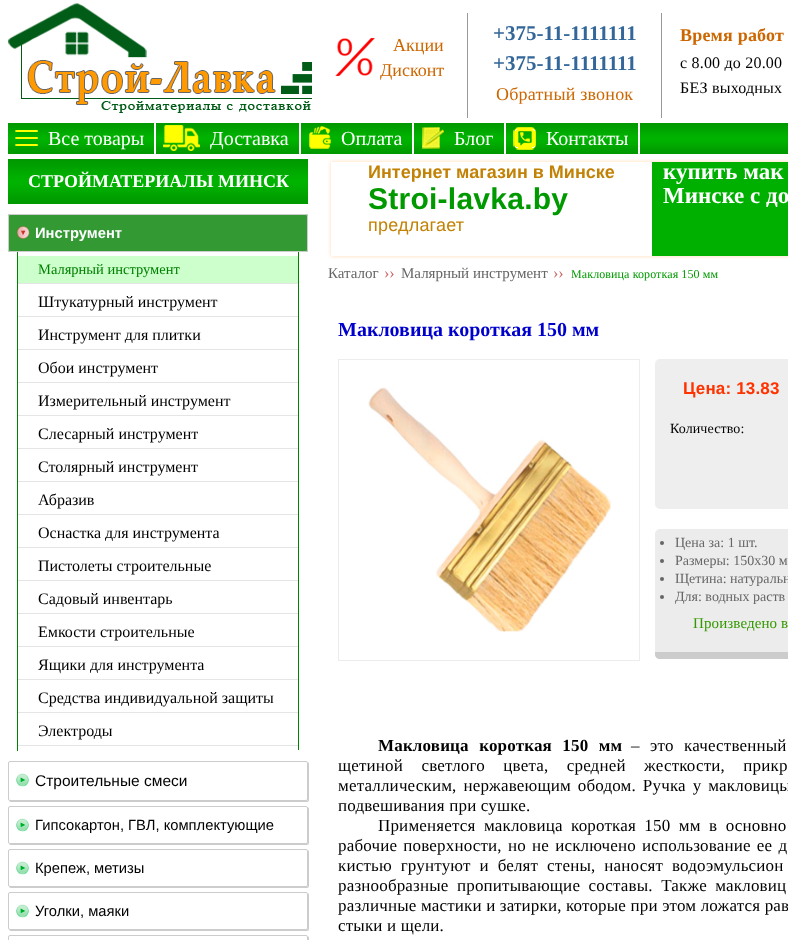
<!DOCTYPE html>
<meta charset="utf-8">
<style>body { margin: 0 } canvas { display: block }</style>
<canvas id="canvas" width="788" height="940"></canvas>
<img id="img1" src="images/1.png" hidden>
<img id="img2" src="images/2.png" hidden>
<img id="img3" src="images/3.png" hidden>
<img id="img4" src="images/4.png" hidden>
<img id="img5" src="images/5.png" hidden>
<img id="img6" src="images/6.png" hidden>
<img id="img7" src="images/7.png" hidden>
<img id="img8" src="images/8.png" hidden>
<img id="img9" src="images/9.png" hidden>
<img id="img10" src="images/10.png" hidden>
<img id="img11" src="images/11.png" hidden>
<img id="img12" src="images/12.png" hidden>
<img id="img13" src="images/13.png" hidden>
<script>
window.onload = function () {
    const canvas = document.getElementById('canvas');
    const context = canvas.getContext('2d');
    context.miterLimit = 4;
    context.fontKerning = 'normal';

    context.fillStyle = 'rgb(255, 255, 255)';
    context.fillRect(0, 0, 788, 940);
    context.drawImage(document.getElementById('img1'), 8, 3, 304, 110);
    context.drawImage(document.getElementById('img2'), 335, 38, 40, 38);
    context.fillStyle = 'rgb(153, 153, 153)';
    context.fillRect(661, 13, 1, 105);
    context.fillRect(467, 13, 1, 105);
    context.drawImage(document.getElementById('img3'), 8, 123, 780, 31);
    context.drawImage(document.getElementById('img4'), 15, 130, 23, 16);
    context.fillStyle = 'rgb(255, 255, 255)';
    context.fillRect(154, 123, 2, 31);
    context.drawImage(document.getElementById('img5'), 163, 125, 37, 26);
    context.fillRect(299, 123, 2, 31);
    context.drawImage(document.getElementById('img6'), 309, 126, 22, 23);
    context.fillRect(412, 123, 2, 31);
    context.drawImage(document.getElementById('img7'), 422, 127, 22, 22);
    context.fillRect(504, 123, 2, 31);
    context.drawImage(document.getElementById('img8'), 513, 127, 23, 23);
    context.fillRect(638, 123, 2, 31);
    context.drawImage(document.getElementById('img9'), 8, 159, 300, 45);
    context.fillStyle = 'rgb(51, 153, 51)';
    context.beginPath();
    context.roundRect(8, 214, 300, 38, 2);
    context.fill();
    context.drawImage(document.getElementById('img10'), 16, 226, 14, 13);
    context.beginPath();
    context.roundRect(8.5, 214.5, 299, 37, 1.5);
    context.strokeStyle = 'rgb(204, 204, 204)';
    context.stroke();
    context.fillStyle = 'rgb(0, 128, 0)';
    context.fillRect(298, 252, 1, 499);
    context.fillStyle = 'rgb(255, 255, 255)';
    context.fillRect(298, 750, 1, 1);
    context.fillStyle = 'rgb(0, 128, 0)';
    context.fillRect(17, 252, 1, 499);
    context.fillStyle = 'rgb(204, 255, 204)';
    context.fillRect(18, 256, 280, 27);
    context.fillStyle = 'rgb(229, 229, 229)';
    context.fillRect(18, 283, 280, 1);
    context.fillRect(18, 316, 280, 1);
    context.fillRect(18, 349, 280, 1);
    context.fillRect(18, 382, 280, 1);
    context.fillRect(18, 415, 280, 1);
    context.fillRect(18, 448, 280, 1);
    context.fillRect(18, 481, 280, 1);
    context.fillRect(18, 514, 280, 1);
    context.fillRect(18, 547, 280, 1);
    context.fillRect(18, 580, 280, 1);
    context.fillRect(18, 613, 280, 1);
    context.fillRect(18, 646, 280, 1);
    context.fillRect(18, 679, 280, 1);
    context.fillRect(18, 712, 280, 1);
    context.fillRect(18, 745, 280, 1);
    context.save();
    context.beginPath();
    context.moveTo(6, 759);
    context.lineTo(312, 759);
    context.lineTo(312, 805);
    context.lineTo(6, 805);
    context.closePath();
    context.moveTo(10, 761);
    context.lineTo(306, 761);
    context.bezierCurveTo(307, 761, 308, 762, 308, 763);
    context.lineTo(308, 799);
    context.bezierCurveTo(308, 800, 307, 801, 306, 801);
    context.lineTo(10, 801);
    context.bezierCurveTo(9, 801, 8, 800, 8, 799);
    context.lineTo(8, 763);
    context.bezierCurveTo(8, 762, 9, 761, 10, 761);
    context.closePath();
    context.clip('evenodd');
    context.fillStyle = 'rgba(0, 0, 0, 0.2)';
    context.filter = 'blur(0.5px)';
    context.beginPath();
    context.roundRect(9, 762, 300, 40, 2);
    context.fill();
    context.filter = 'none';
    context.restore();
    context.drawImage(document.getElementById('img11'), 16, 773, 13, 14);
    context.beginPath();
    context.roundRect(8.5, 761.5, 299, 39, 1.5);
    context.stroke();
    context.save();
    context.beginPath();
    context.moveTo(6, 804);
    context.lineTo(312, 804);
    context.lineTo(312, 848);
    context.lineTo(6, 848);
    context.closePath();
    context.moveTo(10, 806);
    context.lineTo(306, 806);
    context.bezierCurveTo(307, 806, 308, 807, 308, 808);
    context.lineTo(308, 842);
    context.bezierCurveTo(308, 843, 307, 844, 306, 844);
    context.lineTo(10, 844);
    context.bezierCurveTo(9, 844, 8, 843, 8, 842);
    context.lineTo(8, 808);
    context.bezierCurveTo(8, 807, 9, 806, 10, 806);
    context.closePath();
    context.clip('evenodd');
    context.fillStyle = 'rgba(0, 0, 0, 0.2)';
    context.filter = 'blur(0.5px)';
    context.beginPath();
    context.roundRect(9, 807, 300, 38, 2);
    context.fill();
    context.filter = 'none';
    context.restore();
    context.drawImage(document.getElementById('img11'), 16, 818, 13, 14);
    context.beginPath();
    context.roundRect(8.5, 806.5, 299, 37, 1.5);
    context.stroke();
    context.save();
    context.beginPath();
    context.moveTo(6, 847);
    context.lineTo(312, 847);
    context.lineTo(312, 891);
    context.lineTo(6, 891);
    context.closePath();
    context.moveTo(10, 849);
    context.lineTo(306, 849);
    context.bezierCurveTo(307, 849, 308, 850, 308, 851);
    context.lineTo(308, 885);
    context.bezierCurveTo(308, 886, 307, 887, 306, 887);
    context.lineTo(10, 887);
    context.bezierCurveTo(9, 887, 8, 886, 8, 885);
    context.lineTo(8, 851);
    context.bezierCurveTo(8, 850, 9, 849, 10, 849);
    context.closePath();
    context.clip('evenodd');
    context.fillStyle = 'rgba(0, 0, 0, 0.2)';
    context.filter = 'blur(0.5px)';
    context.beginPath();
    context.roundRect(9, 850, 300, 38, 2);
    context.fill();
    context.filter = 'none';
    context.restore();
    context.drawImage(document.getElementById('img11'), 16, 861, 13, 14);
    context.beginPath();
    context.roundRect(8.5, 849.5, 299, 37, 1.5);
    context.stroke();
    context.save();
    context.beginPath();
    context.moveTo(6, 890);
    context.lineTo(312, 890);
    context.lineTo(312, 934);
    context.lineTo(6, 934);
    context.closePath();
    context.moveTo(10, 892);
    context.lineTo(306, 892);
    context.bezierCurveTo(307, 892, 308, 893, 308, 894);
    context.lineTo(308, 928);
    context.bezierCurveTo(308, 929, 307, 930, 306, 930);
    context.lineTo(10, 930);
    context.bezierCurveTo(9, 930, 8, 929, 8, 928);
    context.lineTo(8, 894);
    context.bezierCurveTo(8, 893, 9, 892, 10, 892);
    context.closePath();
    context.clip('evenodd');
    context.fillStyle = 'rgba(0, 0, 0, 0.2)';
    context.filter = 'blur(0.5px)';
    context.beginPath();
    context.roundRect(9, 893, 300, 38, 2);
    context.fill();
    context.filter = 'none';
    context.restore();
    context.drawImage(document.getElementById('img11'), 16, 904, 13, 14);
    context.beginPath();
    context.roundRect(8.5, 892.5, 299, 37, 1.5);
    context.stroke();
    context.save();
    context.beginPath();
    context.rect(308, 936, 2, 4);
    context.clip();
    context.fillStyle = 'rgba(0, 0, 0, 0.2)';
    context.filter = 'blur(0.5px)';
    context.beginPath();
    context.roundRect(9, 936, 300, 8, 2);
    context.fill();
    context.filter = 'none';
    context.restore();
    context.beginPath();
    context.roundRect(8.5, 935.5, 299, 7, 1.5);
    context.stroke();
    context.drawImage(document.getElementById('img12'), 328, 159, 460, 100);
    context.strokeStyle = 'rgb(237, 236, 236)';
    context.strokeRect(338.5, 359.5, 301, 301);
    context.drawImage(document.getElementById('img13'), 368, 387, 243, 245);
    context.fillStyle = 'rgb(238, 238, 238)';
    context.beginPath();
    context.roundRect(655, 359, 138, 150, 5);
    context.fill();
    context.fillStyle = 'rgb(237, 236, 236)';
    context.beginPath();
    context.roundRect(655, 529, 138, 130, 5);
    context.fill();
    context.fillStyle = 'rgb(102, 102, 102)';
    context.beginPath();
    context.arc(662, 543, 2, 0, 2 * Math.PI);
    context.fill();
    context.beginPath();
    context.arc(662, 561, 2, 0, 2 * Math.PI);
    context.fill();
    context.beginPath();
    context.arc(662, 579, 2, 0, 2 * Math.PI);
    context.fill();
    context.beginPath();
    context.arc(662, 597, 2, 0, 2 * Math.PI);
    context.fill();
    context.fillStyle = 'rgb(204, 204, 204)';
    context.beginPath();
    context.moveTo(655, 652);
    context.lineTo(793, 652);
    context.lineTo(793, 654);
    context.bezierCurveTo(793, 657, 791, 659, 788, 659);
    context.lineTo(660, 659);
    context.bezierCurveTo(657, 659, 655, 657, 655, 654);
    context.closePath();
    context.fill();
    context.font = '18px Liberation Serif';
    context.fillStyle = 'rgb(204, 102, 0)';
    context.fillText('Акции', 393, 51);
    context.fillText('Дисконт', 380, 76);
    context.font = 'bold 21px Liberation Serif';
    context.fillStyle = 'rgb(51, 102, 153)';
    context.fillText('+375-11-1111111', 493, 40);
    context.fillText('+375-11-1111111', 493, 70);
    context.letterSpacing = '0.2px';
    context.font = '18px Liberation Serif';
    context.fillStyle = 'rgb(204, 102, 0)';
    context.fillText('Обратный звонок', 496, 100);
    context.font = 'bold 18px Liberation Serif';
    context.fillText('Время работ', 680, 41);
    context.font = '16px Liberation Serif';
    context.fillStyle = 'rgb(0, 0, 0)';
    context.fillText('с 8.00 до 20.00', 680, 68);
    context.fillText('БЕЗ выходных', 680, 93);
    context.letterSpacing = '0px';
    context.font = '20px Liberation Serif';
    context.fillStyle = 'rgb(255, 255, 255)';
    context.fillText('Все товары', 48, 145);
    context.fillText('Доставка', 210, 145);
    context.fillText('Оплата', 341, 145);
    context.fillText('Блог', 454, 145);
    context.fillText('Контакты', 546, 145);
    context.font = 'bold 18px Liberation Serif';
    context.fillText('СТРОЙМАТЕРИАЛЫ МИНСК', 28, 187);
    context.font = 'bold 14.75px Liberation Sans';
    context.fillText('Инструмент', 35, 238);
    context.font = '14.5px Liberation Serif';
    context.fillStyle = 'rgb(0, 128, 0)';
    context.fillText('Малярный инструмент', 38, 274);
    context.font = '16px Liberation Serif';
    context.fillStyle = 'rgb(0, 0, 0)';
    context.fillText('Штукатурный инструмент', 38, 307);
    context.fillText('Инструмент для плитки', 38, 340);
    context.fillText('Обои инструмент', 38, 373);
    context.fillText('Измерительный инструмент', 38, 406);
    context.fillText('Слесарный инструмент', 38, 439);
    context.fillText('Столярный инструмент', 38, 472);
    context.fillText('Абразив', 38, 505);
    context.fillText('Оснастка для инструмента', 38, 538);
    context.fillText('Пистолеты строительные', 38, 571);
    context.fillText('Садовый инвентарь', 38, 604);
    context.fillText('Емкости строительные', 38, 637);
    context.fillText('Ящики для инструмента', 38, 670);
    context.fillText('Средства индивидуальной защиты', 38, 703);
    context.fillText('Электроды', 38, 736);
    context.font = '15.5px Liberation Sans';
    context.fillText('Строительные смеси', 35, 786);
    context.font = '14.75px Liberation Sans';
    context.fillText('Гипсокартон, ГВЛ, комплектующие', 35, 830);
    context.fillText('Крепеж, метизы', 35, 873);
    context.fillText('Уголки, маяки', 35, 916);
    context.font = 'bold 18px Liberation Sans';
    context.fillStyle = 'rgb(194, 130, 5)';
    context.fillText('Интернет магазин в Минске', 368, 178);
    context.letterSpacing = '0.25px';
    context.font = 'bold 30px Liberation Sans';
    context.fillStyle = 'rgb(0, 153, 0)';
    context.fillText('Stroi-lavka.by', 368, 209);
    context.letterSpacing = '0.2px';
    context.font = '18px Liberation Sans';
    context.fillStyle = 'rgb(194, 130, 5)';
    context.fillText('предлагает', 368, 231);
    context.letterSpacing = '0px';
    context.font = 'bold 23px Liberation Serif';
    context.fillStyle = 'rgb(255, 255, 255)';
    context.fillText('купить мак', 663, 179);
    context.fillText('Минске с до', 663, 203);
    context.font = '15px Liberation Serif';
    context.fillStyle = 'rgb(102, 102, 102)';
    context.fillText('Каталог', 328, 278);
    context.font = '16px Liberation Serif';
    context.fillStyle = 'rgb(204, 102, 102)';
    context.fillText('››', 384, 278);
    context.font = '15px Liberation Serif';
    context.fillStyle = 'rgb(102, 102, 102)';
    context.fillText('Малярный инструмент', 401, 278);
    context.font = '16px Liberation Serif';
    context.fillStyle = 'rgb(204, 102, 102)';
    context.fillText('››', 553, 278);
    context.letterSpacing = '0.1px';
    context.font = '12px Liberation Serif';
    context.fillStyle = 'rgb(0, 153, 0)';
    context.fillText('Макловица короткая 150 мм', 571, 278);
    context.letterSpacing = '0px';
    context.font = 'bold 20px Liberation Serif';
    context.fillStyle = 'rgb(0, 0, 204)';
    context.fillText('Макловица короткая 150 мм', 338, 336);
    context.letterSpacing = '0.17px';
    context.font = 'bold 17px Liberation Sans';
    context.fillStyle = 'rgb(255, 51, 0)';
    context.fillText('Цена: 13.83', 683, 394);
    context.letterSpacing = '0.1px';
    context.font = '14px Liberation Serif';
    context.fillStyle = 'rgb(0, 0, 0)';
    context.fillText('Количество:', 670, 433);
    context.letterSpacing = '0px';
    context.fillStyle = 'rgb(102, 102, 102)';
    context.fillText('Цена за: 1 шт.', 675, 547);
    context.fillText('Размеры: 150х30 м', 675, 565);
    context.fillText('Щетина: натуральн', 675, 583);
    context.fillText('Для: водных раств', 675, 601);
    context.letterSpacing = '0.1px';
    context.font = '15px Liberation Serif';
    context.fillStyle = 'rgb(51, 153, 0)';
    context.fillText('Произведено в', 693, 628);
    context.letterSpacing = '0.17px';
    context.wordSpacing = '6px';
    context.font = 'bold 17px Liberation Serif';
    context.fillStyle = 'rgb(0, 0, 0)';
    context.fillText('Макловица короткая 150 мм', 378, 751);
    context.font = '17px Liberation Serif';
    context.fillText('– это качественный', 631, 751);
    context.wordSpacing = '14px';
    context.fillText('щетиной светлого цвета, средней жесткости, прикр', 338, 771);
    context.wordSpacing = '2.5px';
    context.fillText('металлическим, нержавеющим ободом. Ручка у макловицы', 338, 791);
    context.wordSpacing = '0px';
    context.fillText('подвешивания при сушке.', 338, 811);
    context.wordSpacing = '4px';
    context.fillText('Применяется макловица короткая 150 мм в основно', 378, 831);
    context.wordSpacing = '1.75px';
    context.fillText('рабочие поверхности, но не исключено использование ее д', 338, 851);
    context.wordSpacing = '4.5px';
    context.fillText('кистью грунтуют и белят стены, наносят водоэмульсион', 338, 871);
    context.wordSpacing = '4px';
    context.fillText('разнообразные пропитывающие составы. Также макловиц', 338, 891);
    context.wordSpacing = '0px';
    context.fillText('различные мастики и затирки, которые при этом ложатся рав', 338, 911);
    context.fillText('стыки и щели.', 338, 931);
};
</script>
